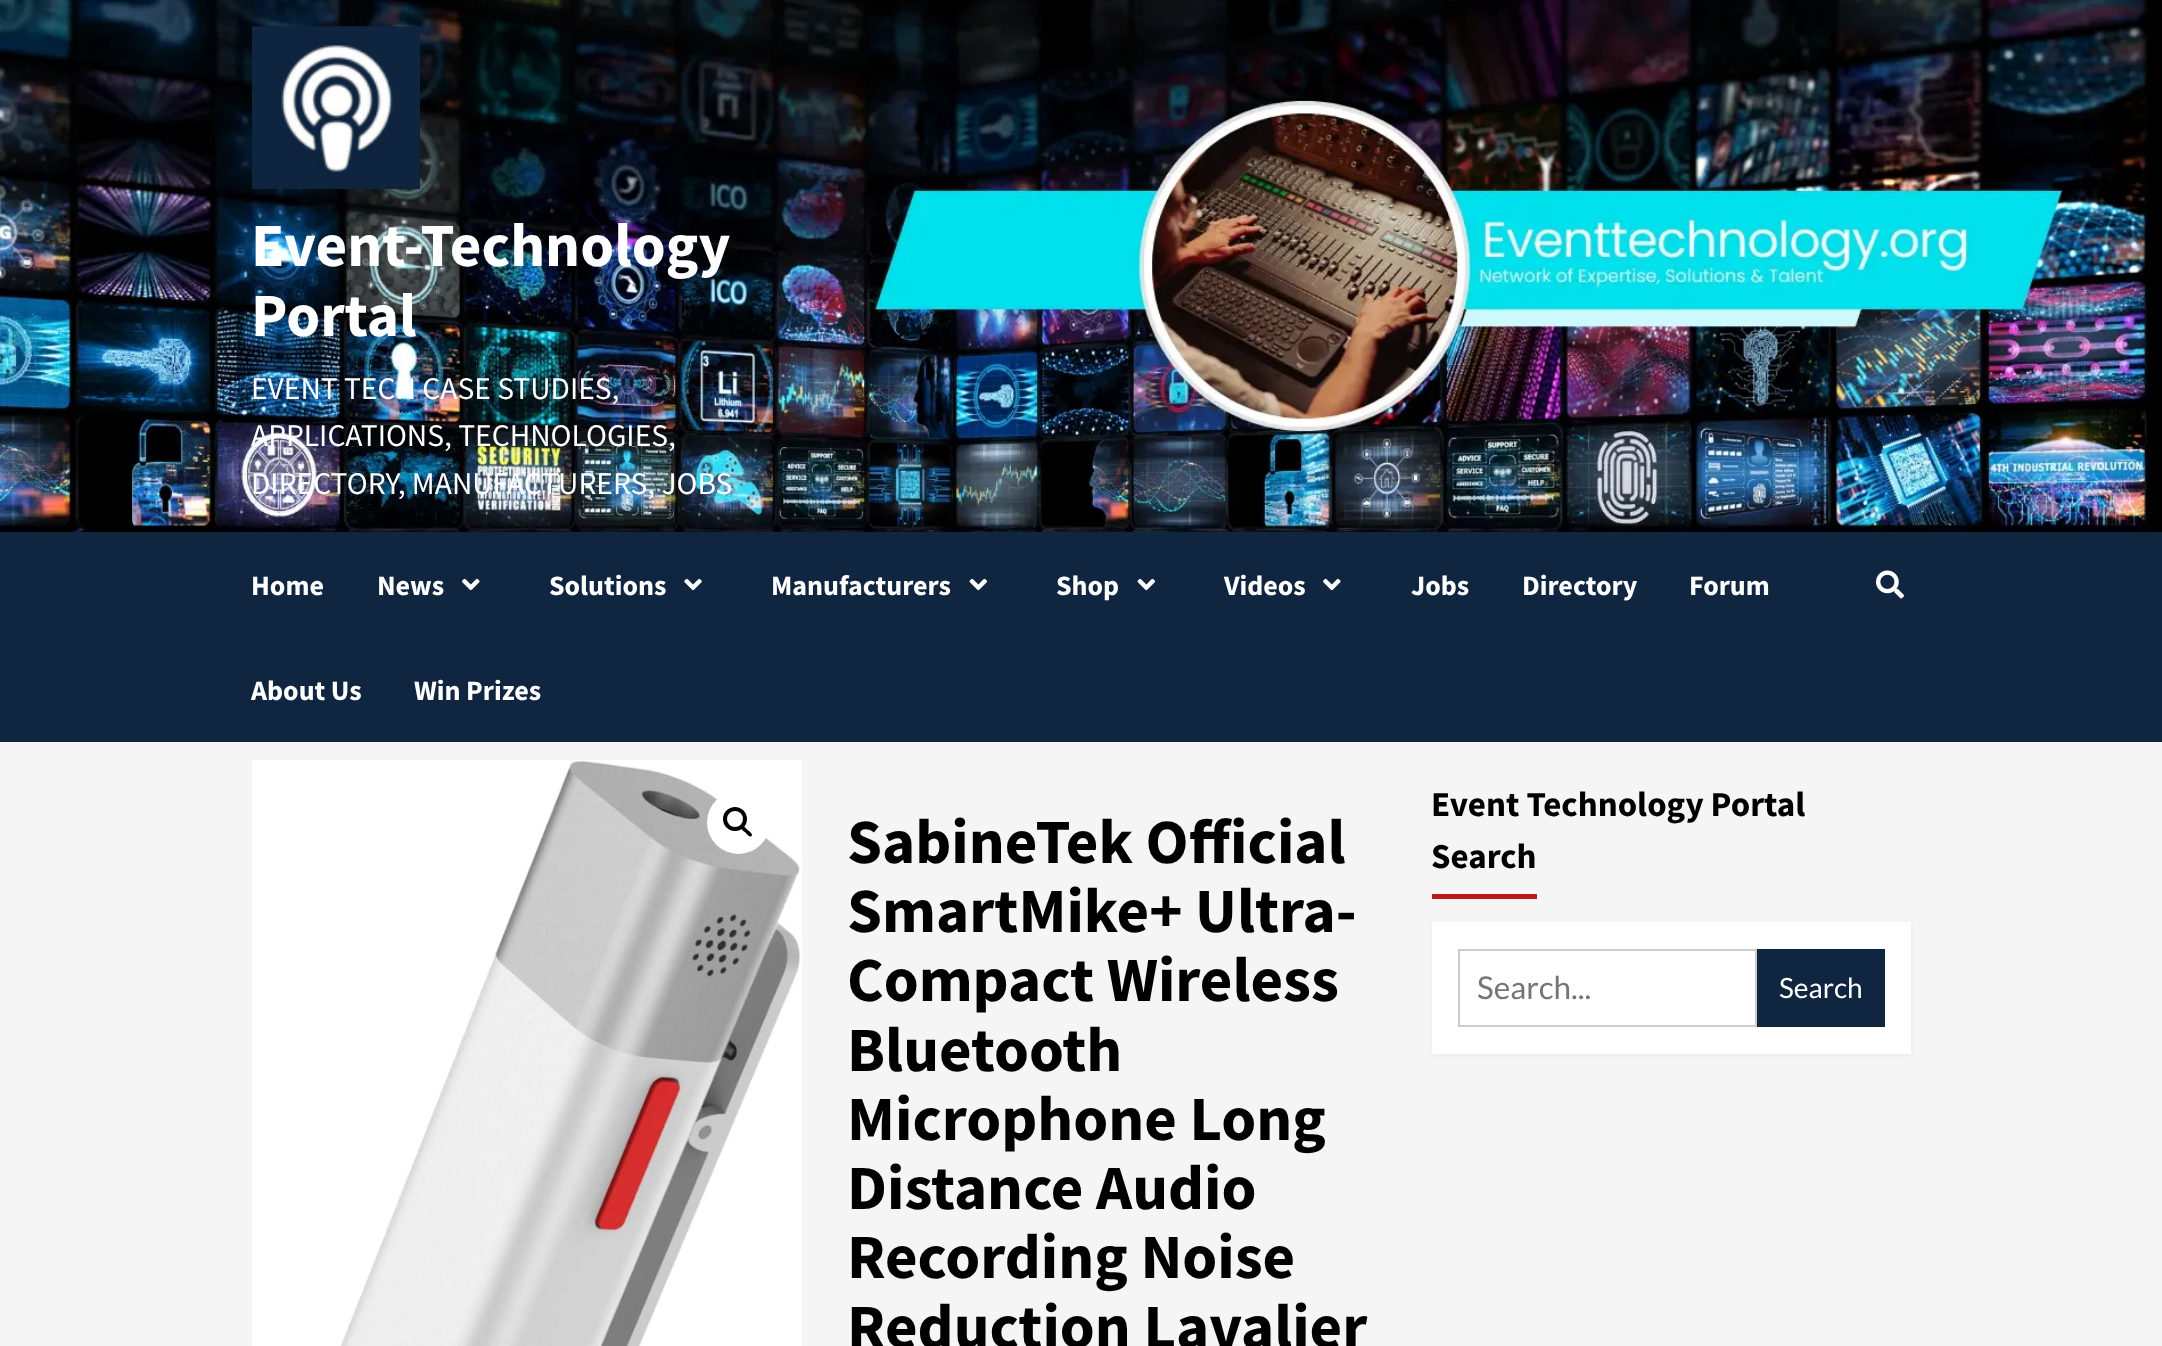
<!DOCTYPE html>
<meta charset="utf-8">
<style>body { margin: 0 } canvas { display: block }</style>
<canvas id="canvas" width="2162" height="1346"></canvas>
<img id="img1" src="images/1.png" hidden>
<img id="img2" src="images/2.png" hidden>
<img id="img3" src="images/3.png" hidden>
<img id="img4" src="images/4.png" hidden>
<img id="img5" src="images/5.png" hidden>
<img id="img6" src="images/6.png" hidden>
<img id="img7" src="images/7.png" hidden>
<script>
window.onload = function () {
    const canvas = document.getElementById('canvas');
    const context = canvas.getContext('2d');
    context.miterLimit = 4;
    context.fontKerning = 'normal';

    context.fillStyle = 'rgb(245, 245, 245)';
    context.fillRect(0, 0, 2162, 1346);
    context.drawImage(document.getElementById('img1'), 0, 0, 2162, 532);
    context.drawImage(document.getElementById('img2'), 252, 26, 168, 163);
    context.fillStyle = 'rgb(16, 37, 63)';
    context.fillRect(0, 532, 2162, 210);
    context.drawImage(document.getElementById('img3'), 462, 578, 18, 13);
    context.drawImage(document.getElementById('img4'), 684, 578, 18, 13);
    context.drawImage(document.getElementById('img5'), 969, 578, 18, 13);
    context.drawImage(document.getElementById('img5'), 1137, 578, 18, 13);
    context.drawImage(document.getElementById('img3'), 1323, 578, 18, 13);
    context.drawImage(document.getElementById('img6'), 1876, 570, 28, 29);
    context.drawImage(document.getElementById('img7'), 252, 760, 550, 586);
    context.fillStyle = 'rgb(255, 255, 255)';
    context.beginPath();
    context.arc(738.5, 822.5, 31.5, 0, 2 * Math.PI);
    context.fill();
    context.beginPath();
    context.arc(735, 819, 10, 0, 2 * Math.PI);
    context.strokeStyle = 'rgb(0, 0, 0)';
    context.lineWidth = 4;
    context.stroke();
    context.fillStyle = 'rgb(0, 0, 0)';
    context.beginPath();
    context.moveTo(741.5, 826.5);
    context.bezierCurveTo(743.5, 824.5, 746.5, 829, 747.5, 830);
    context.bezierCurveTo(749, 831, 753.5, 834, 751.5, 836);
    context.bezierCurveTo(749.5, 838, 746.5, 833.5, 745.5, 832.5);
    context.bezierCurveTo(744, 831.5, 739.5, 828.5, 741.5, 826.5);
    context.closePath();
    context.fill();
    context.fillStyle = 'rgb(187, 25, 25)';
    context.fillRect(1432, 894, 105, 5);
    context.fillStyle = 'rgba(0, 0, 0, 0.05)';
    context.filter = 'blur(2px)';
    context.beginPath();
    context.rect(1432, 924, 479, 131);
    context.fill();
    context.filter = 'none';
    context.fillStyle = 'rgb(255, 255, 255)';
    context.fillRect(1432, 922, 479, 132);
    context.strokeStyle = 'rgb(204, 204, 204)';
    context.lineWidth = 2;
    context.strokeRect(1459, 950, 297, 76);
    context.fillStyle = 'rgb(16, 37, 63)';
    context.fillRect(1757, 949, 128, 78);
    context.font = 'bold 61.25px Source Sans Pro';
    context.fillStyle = 'rgb(255, 255, 255)';
    context.fillText('Event-Technology', 251, 266);
    context.fillText('Portal', 251, 336);
    context.font = '31.5px Source Sans Pro';
    context.fillText('EVENT TECH CASE STUDIES,', 251, 399);
    context.fillText('APPLICATIONS, TECHNOLOGIES,', 251, 446);
    context.fillText('DIRECTORY, MANUFACTURERS, JOBS', 251, 494);
    context.font = 'bold 28px Source Sans Pro';
    context.fillText('Home', 251, 595);
    context.fillText('News', 377, 595);
    context.fillText('Solutions', 549, 595);
    context.fillText('Manufacturers', 771, 595);
    context.fillText('Shop', 1056, 595);
    context.fillText('Videos', 1224, 595);
    context.fillText('Jobs', 1411, 595);
    context.fillText('Directory', 1522, 595);
    context.fillText('Forum', 1689, 595);
    context.fillText('About Us', 251, 700);
    context.fillText('Win Prizes', 414, 700);
    context.font = 'bold 63px Source Sans Pro';
    context.fillStyle = 'rgb(0, 0, 0)';
    context.fillText('SabineTek Official', 847, 863);
    context.fillText('SmartMike+ Ultra-', 847, 932);
    context.fillText('Compact Wireless', 847, 1001);
    context.fillText('Bluetooth', 847, 1071);
    context.fillText('Microphone Long', 847, 1140);
    context.fillText('Distance Audio', 847, 1209);
    context.fillText('Recording Noise', 847, 1278);
    context.fillText('Reduction Lavalier', 847, 1348);
    context.font = 'bold 35px Source Sans Pro';
    context.fillText('Event Technology Portal', 1431, 816);
    context.fillText('Search', 1431, 868);
    context.font = '31.5px Lato';
    context.fillStyle = 'rgb(117, 117, 117)';
    context.fillText('Search...', 1477, 999);
    context.font = '28px Lato';
    context.fillStyle = 'rgb(255, 255, 255)';
    context.fillText('Search', 1779, 998);
};
</script>
